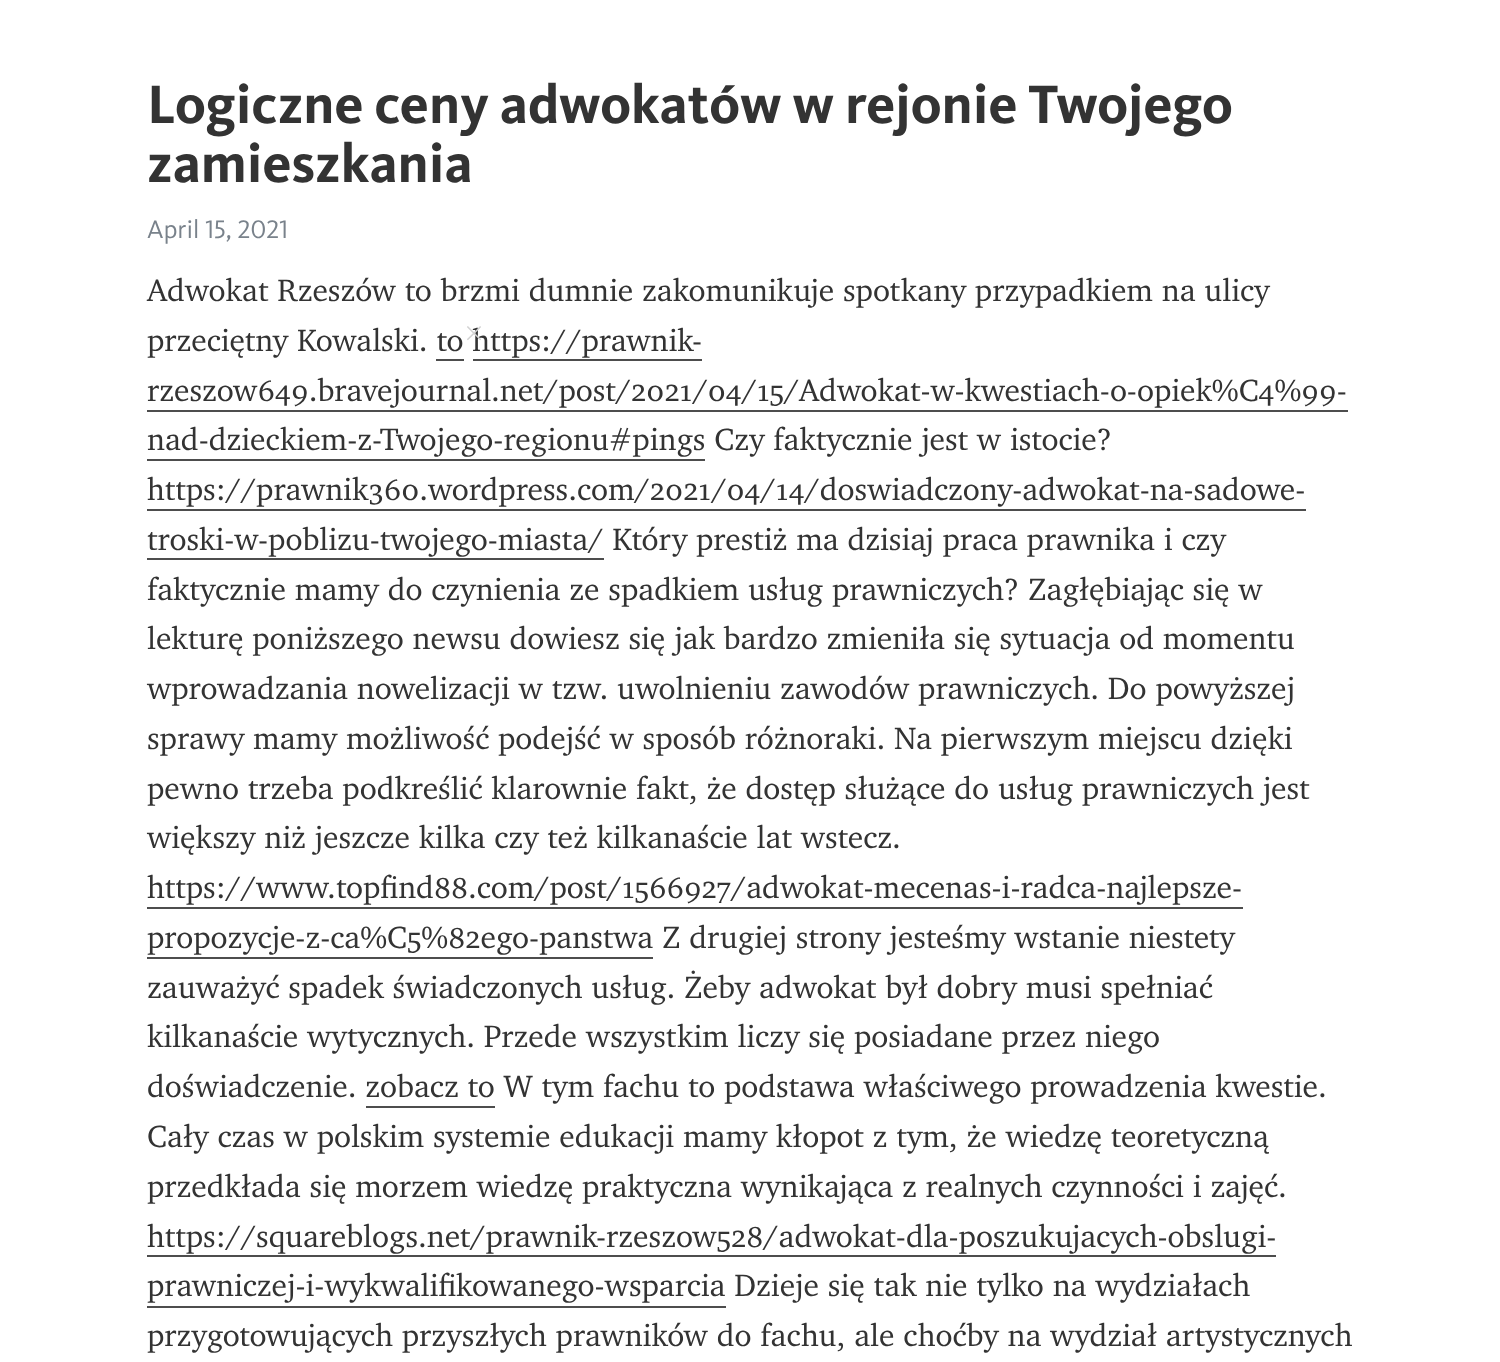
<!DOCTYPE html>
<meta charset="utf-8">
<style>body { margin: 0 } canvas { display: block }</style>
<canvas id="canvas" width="1500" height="1362"></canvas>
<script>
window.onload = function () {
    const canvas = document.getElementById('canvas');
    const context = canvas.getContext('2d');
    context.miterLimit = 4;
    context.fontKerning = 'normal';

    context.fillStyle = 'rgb(255, 255, 255)';
    context.fillRect(0, 0, 1500, 1362);
    context.fillStyle = 'rgb(77, 77, 77)';
    context.fillRect(436, 359, 28, 2);
    context.fillRect(473, 359, 229, 2);
    context.fillRect(147, 410, 1201, 2);
    context.fillRect(147, 459, 558, 2);
    context.fillRect(147, 509, 1159, 2);
    context.fillRect(147, 558, 457, 2);
    context.fillRect(147, 907, 1096, 2);
    context.fillRect(147, 957, 506, 2);
    context.fillRect(366, 1106, 129, 2);
    context.fillRect(147, 1255, 1129, 2);
    context.fillRect(147, 1306, 579, 2);
    context.font = 'bold 56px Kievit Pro';
    context.fillStyle = 'rgb(51, 51, 51)';
    context.fillText('Logiczne ceny adwokatów w rejonie Twojego', 147, 123);
    context.fillText('zamieszkania', 147, 182);
    context.font = '26.25px Kievit Pro';
    context.fillStyle = 'rgb(121, 130, 139)';
    context.fillText('April 15, 2021', 147, 238);
    context.font = '31.5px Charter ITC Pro';
    context.fillStyle = 'rgb(51, 51, 51)';
    context.fillText('Adwokat Rzeszów to brzmi dumnie zakomunikuje spotkany przypadkiem na ulicy', 147, 301);
    context.fillText('przeciętny Kowalski. to https://prawnik-', 147, 351);
    context.fillText('rzeszow649.bravejournal.net/post/2021/04/15/Adwokat-w-kwestiach-o-opiek%C4%99-', 147, 401);
    context.fillText('nad-dzieckiem-z-Twojego-regionu#pings Czy faktycznie jest w istocie?', 147, 450);
    context.fillText('https://prawnik360.wordpress.com/2021/04/14/doswiadczony-adwokat-na-sadowe-', 147, 500);
    context.fillText('troski-w-poblizu-twojego-miasta/ Który prestiż ma dzisiaj praca prawnika i czy', 147, 550);
    context.fillText('faktycznie mamy do czynienia ze spadkiem usług prawniczych? Zagłębiając się w', 147, 600);
    context.fillText('lekturę poniższego newsu dowiesz się jak bardzo zmieniła się sytuacja od momentu', 147, 649);
    context.fillText('wprowadzania nowelizacji w tzw. uwolnieniu zawodów prawniczych. Do powyższej', 147, 699);
    context.fillText('sprawy mamy możliwość podejść w sposób różnoraki. Na pierwszym miejscu dzięki', 147, 749);
    context.fillText('pewno trzeba podkreślić klarownie fakt, że dostęp służące do usług prawniczych jest', 147, 799);
    context.fillText('większy niż jeszcze kilka czy też kilkanaście lat wstecz.', 147, 848);
    context.fillText('https://www.topfind88.com/post/1566927/adwokat-mecenas-i-radca-najlepsze-', 147, 898);
    context.fillText('propozycje-z-ca%C5%82ego-panstwa Z drugiej strony jesteśmy wstanie niestety', 147, 948);
    context.fillText('zauważyć spadek świadczonych usług. Żeby adwokat był dobry musi spełniać', 147, 998);
    context.fillText('kilkanaście wytycznych. Przede wszystkim liczy się posiadane przez niego', 147, 1047);
    context.fillText('doświadczenie. zobacz to W tym fachu to podstawa właściwego prowadzenia kwestie.', 147, 1097);
    context.fillText('Cały czas w polskim systemie edukacji mamy kłopot z tym, że wiedzę teoretyczną', 147, 1147);
    context.fillText('przedkłada się morzem wiedzę praktyczna wynikająca z realnych czynności i zajęć.', 147, 1197);
    context.fillText('https://squareblogs.net/prawnik-rzeszow528/adwokat-dla-poszukujacych-obslugi-', 147, 1247);
    context.fillText('prawniczej-i-wykwalifikowanego-wsparcia Dzieje się tak nie tylko na wydziałach', 147, 1296);
    context.fillText('przygotowujących przyszłych prawników do fachu, ale choćby na wydział artystycznych', 147, 1346);
    context.font = '26.25px Charter ITC Pro';
    context.fillStyle = 'rgb(210, 210, 210)';
    context.fillText('×', 463, 341);
};
</script>
